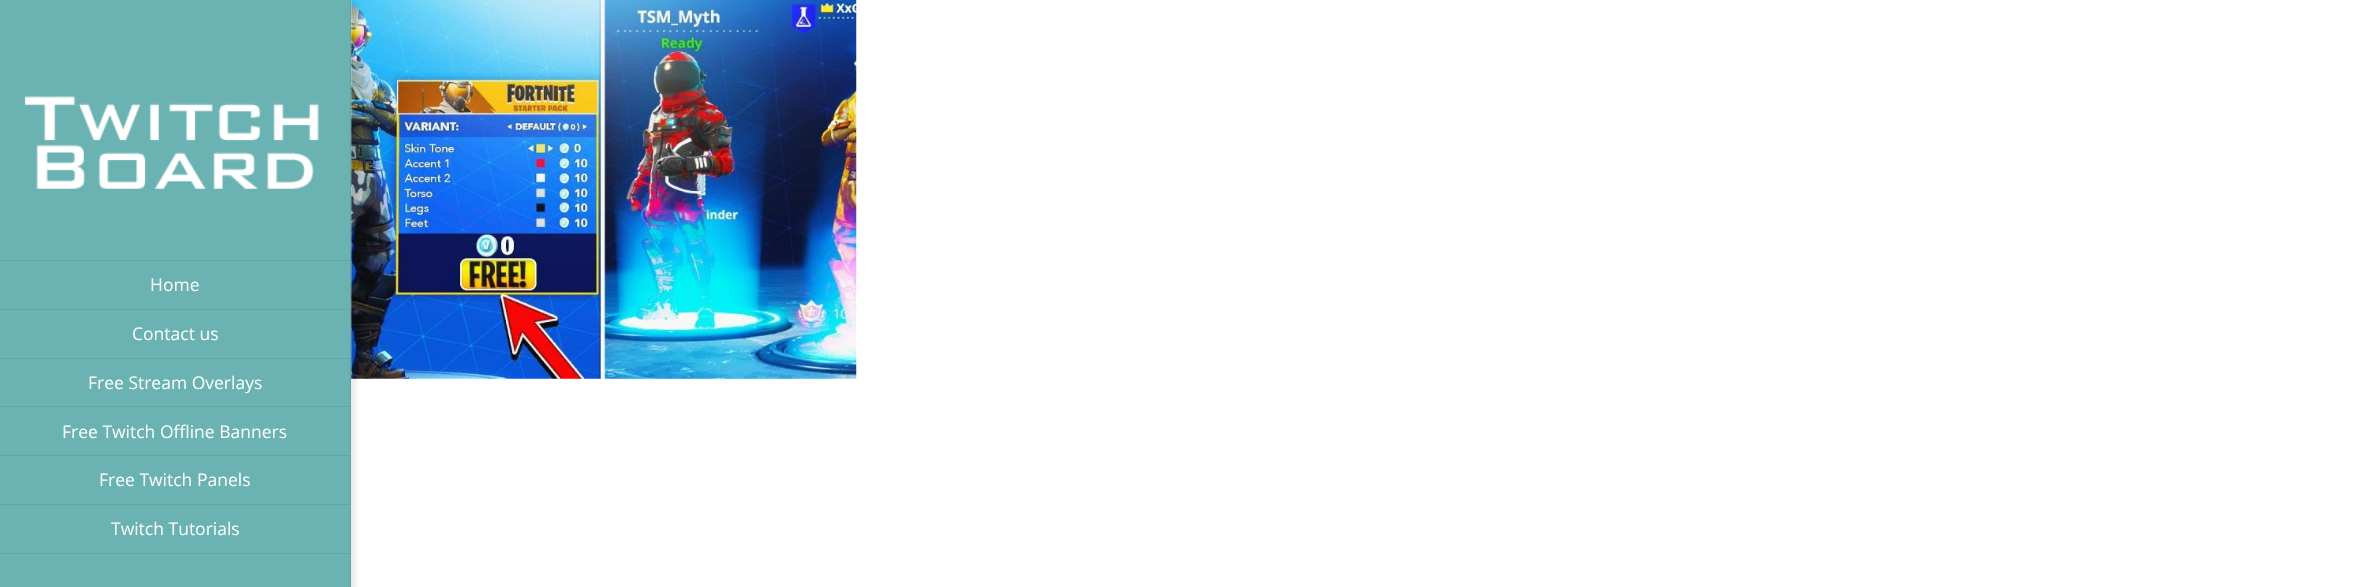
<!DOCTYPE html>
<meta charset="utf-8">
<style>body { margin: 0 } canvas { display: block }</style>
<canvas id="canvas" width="2368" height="587"></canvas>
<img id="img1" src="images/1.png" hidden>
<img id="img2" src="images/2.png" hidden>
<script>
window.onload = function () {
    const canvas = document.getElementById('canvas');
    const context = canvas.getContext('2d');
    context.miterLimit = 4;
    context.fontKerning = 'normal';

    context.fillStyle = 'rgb(255, 255, 255)';
    context.fillRect(0, 0, 2368, 587);
    context.drawImage(document.getElementById('img1'), 351, 0, 506, 379);
    context.fillStyle = 'rgba(0, 0, 0, 0.08)';
    context.filter = 'blur(2.5px)';
    context.beginPath();
    context.rect(5, 0, 351, 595);
    context.fill();
    context.filter = 'none';
    context.fillStyle = 'rgb(106, 179, 178)';
    context.fillRect(0, 0, 350, 587);
    context.fillStyle = 'rgb(94, 165, 164)';
    context.fillRect(350, 0, 1, 587);
    context.drawImage(document.getElementById('img2'), 24, 96, 295, 93);
    context.fillRect(0, 260, 350, 1);
    context.fillRect(0, 309, 350, 1);
    context.fillRect(0, 358, 350, 1);
    context.fillRect(0, 406, 350, 1);
    context.fillRect(0, 455, 350, 1);
    context.fillRect(0, 504, 350, 1);
    context.fillRect(0, 553, 350, 1);
    context.font = '17.5px Open Sans';
    context.fillStyle = 'rgb(255, 255, 255)';
    context.fillText('Home', 150, 291);
    context.fillText('Contact us', 132, 340);
    context.fillText('Free Stream Overlays', 88, 389);
    context.fillText('Free Twitch Offline Banners', 62, 438);
    context.fillText('Free Twitch Panels', 99, 486);
    context.fillText('Twitch Tutorials', 111, 535);
};
</script>
